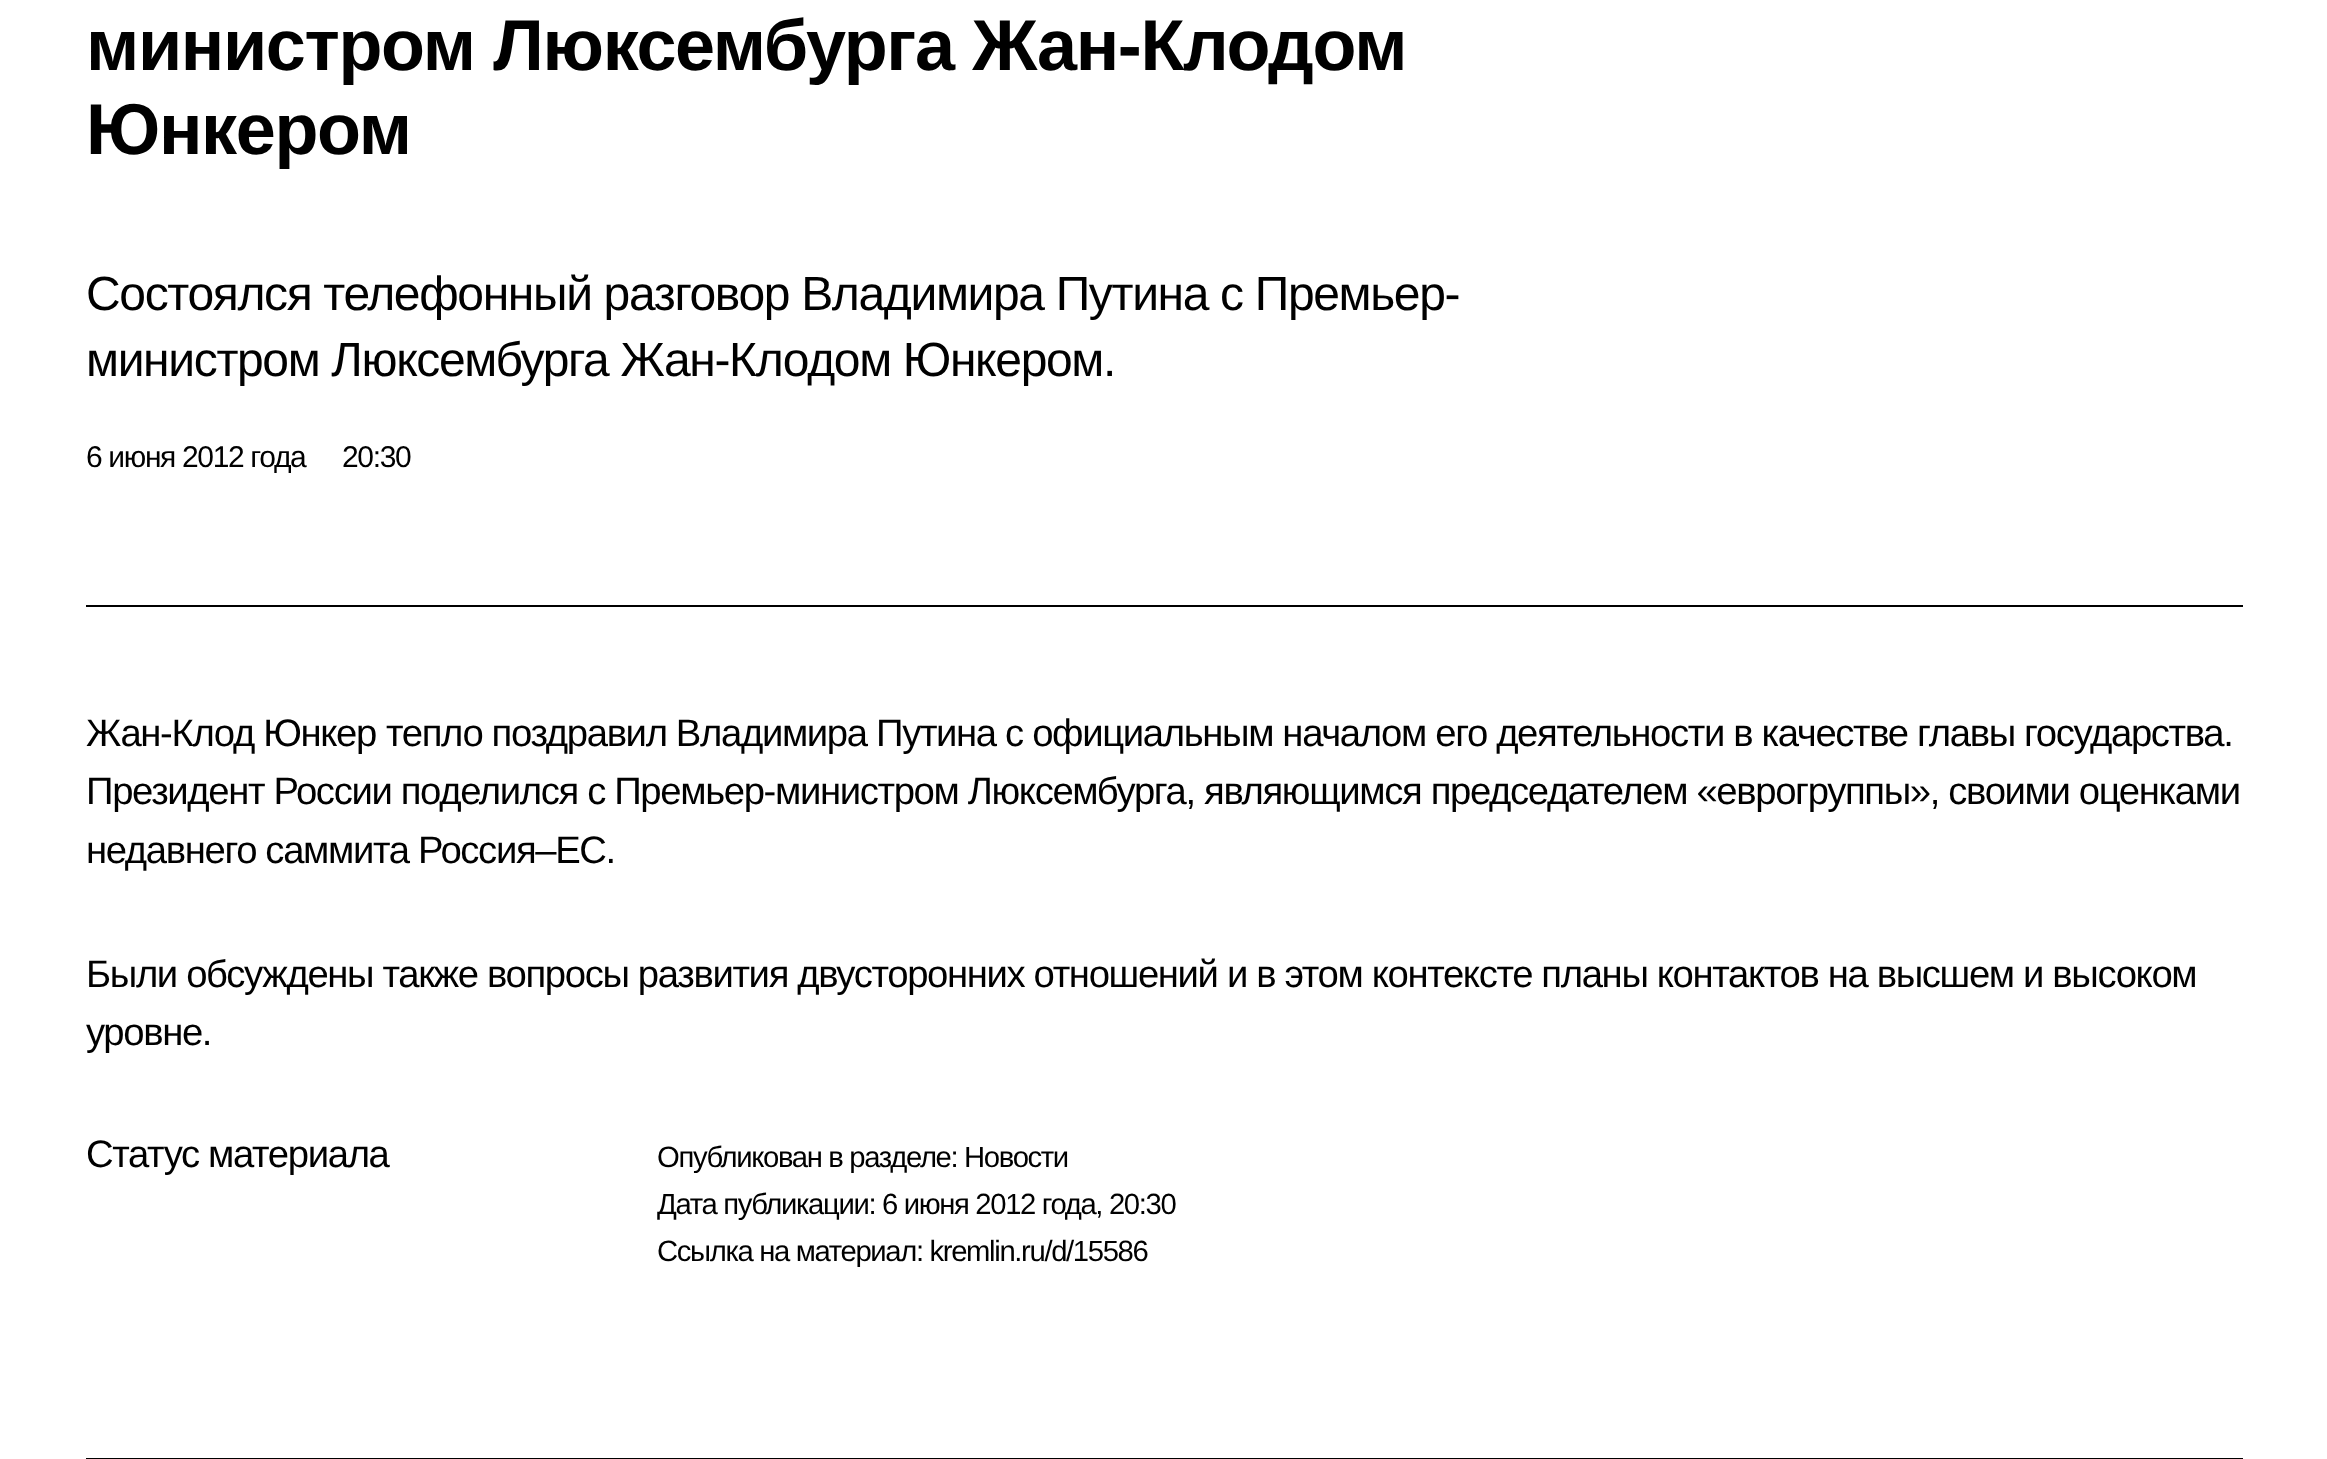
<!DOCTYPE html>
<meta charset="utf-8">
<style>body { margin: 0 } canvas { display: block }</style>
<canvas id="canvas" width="2327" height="1459"></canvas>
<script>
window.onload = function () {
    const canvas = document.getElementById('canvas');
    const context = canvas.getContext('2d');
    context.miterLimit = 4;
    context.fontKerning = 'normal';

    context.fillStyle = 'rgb(255, 255, 255)';
    context.fillRect(0, 0, 2327, 1459);
    context.fillStyle = 'rgb(0, 0, 0)';
    context.fillRect(86, 1458, 2157, 1);
    context.fillRect(86, 605, 2157, 2);
    context.letterSpacing = '-1.35px';
    context.font = 'bold 72px Liberation Sans';
    context.fillText('министром Люксембурга Жан-Клодом', 86, 70);
    context.fillText('Юнкером', 86, 154);
    context.font = '48px Liberation Sans';
    context.fillText('Состоялся телефонный разговор Владимира Путина с Премьер-', 86, 310);
    context.fillText('министром Люксембурга Жан-Клодом Юнкером.', 86, 376);
    context.font = '30px Liberation Sans';
    context.fillText('6 июня 2012 года', 86, 467);
    context.fillText('20:30', 342, 467);
    context.font = '38.25px Liberation Sans';
    context.fillText('Жан-Клод Юнкер', 86, 746);
    context.fillText('тепло поздравил Владимира Путина с официальным началом его деятельности в качестве главы государства.', 386, 746);
    context.fillText('Президент России поделился с Премьер-министром Люксембурга, являющимся председателем «еврогруппы», своими оценками', 86, 804);
    context.fillText('недавнего саммита Россия–ЕС.', 86, 863);
    context.fillText('Были обсуждены также вопросы развития двусторонних отношений и в этом контексте планы контактов на высшем и высоком', 86, 987);
    context.fillText('уровне.', 86, 1045);
    context.fillText('Статус материала', 86, 1167);
    context.font = '29.25px Liberation Sans';
    context.fillText('Опубликован в разделе: Новости', 657, 1167);
    context.fillText('Дата публикации: 6 июня 2012 года, 20:30', 657, 1214);
    context.fillText('Ссылка на материал: kremlin.ru/d/15586', 657, 1261);
};
</script>
